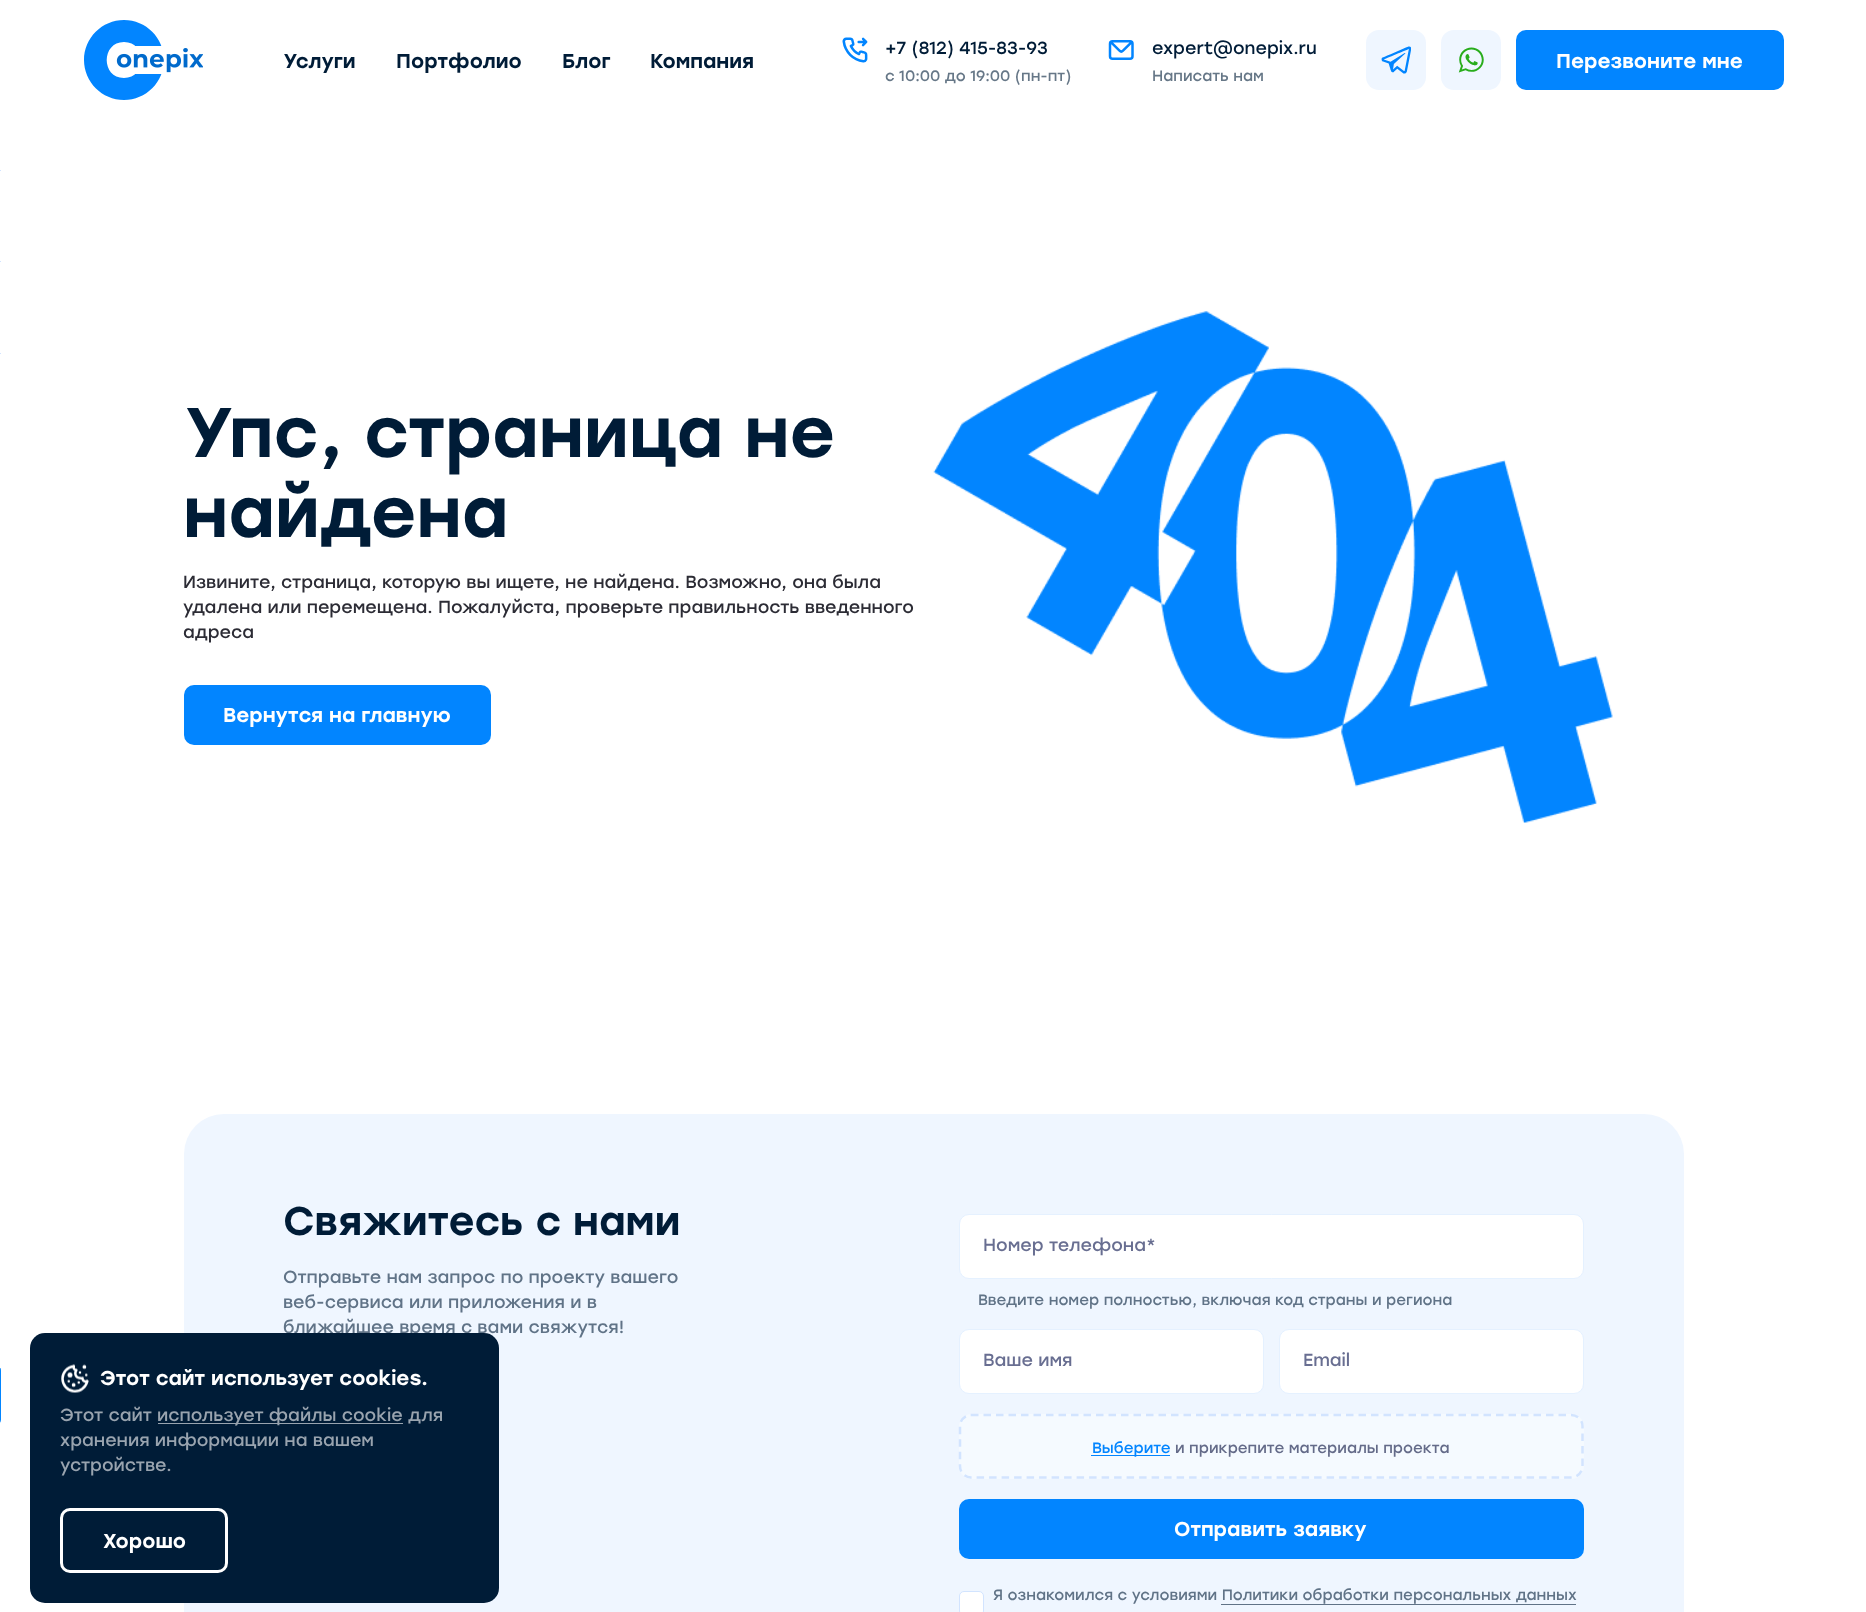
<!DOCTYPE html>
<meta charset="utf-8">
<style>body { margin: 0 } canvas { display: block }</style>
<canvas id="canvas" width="1866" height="1612"></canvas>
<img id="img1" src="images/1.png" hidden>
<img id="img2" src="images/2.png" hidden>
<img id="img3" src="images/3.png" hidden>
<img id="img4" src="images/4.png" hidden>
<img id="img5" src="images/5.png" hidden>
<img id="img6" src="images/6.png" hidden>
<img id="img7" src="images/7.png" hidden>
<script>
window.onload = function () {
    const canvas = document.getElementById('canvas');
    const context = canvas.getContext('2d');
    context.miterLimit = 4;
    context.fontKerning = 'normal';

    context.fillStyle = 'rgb(255, 255, 255)';
    context.fillRect(0, 0, 1866, 1612);
    context.fillStyle = 'rgb(2, 133, 255)';
    context.beginPath();
    context.moveTo(124, 100);
    context.bezierCurveTo(146, 100, 164, 82, 164, 60);
    context.bezierCurveTo(164, 38, 146, 20, 124, 20);
    context.bezierCurveTo(102, 20, 84, 38, 84, 60);
    context.bezierCurveTo(84, 82, 102, 100, 124, 100);
    context.closePath();
    context.moveTo(124, 78);
    context.bezierCurveTo(147, 78, 147, 42, 124, 42);
    context.bezierCurveTo(101, 42, 101, 78, 124, 78);
    context.closePath();
    context.fill('evenodd');
    context.fillStyle = 'rgb(255, 255, 255)';
    context.fillRect(135, 46, 29, 28);
    context.drawImage(document.getElementById('img1'), 116, 48, 87, 25);
    context.drawImage(document.getElementById('img2'), 842, 37, 26, 26);
    context.drawImage(document.getElementById('img3'), 1108, 40, 26, 20);
    context.fillStyle = 'rgb(239, 246, 255)';
    context.beginPath();
    context.roundRect(1366, 30, 60, 60, 13);
    context.fill();
    context.drawImage(document.getElementById('img4'), 1381, 46, 30, 28);
    context.beginPath();
    context.roundRect(1441, 30, 60, 60, 13);
    context.fill();
    context.drawImage(document.getElementById('img5'), 1458, 47, 26, 26);
    context.fillStyle = 'rgb(2, 133, 255)';
    context.beginPath();
    context.roundRect(1516, 30, 268, 60, 10);
    context.fill();
    context.fillStyle = 'rgb(210, 228, 255)';
    context.fillRect(0, 170, 1, 1);
    context.fillRect(0, 261, 1, 1);
    context.fillRect(0, 353, 1, 1);
    context.fillStyle = 'rgb(2, 133, 255)';
    context.beginPath();
    context.roundRect(-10, 1365, 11, 60, 10);
    context.fill();
    context.beginPath();
    context.roundRect(184, 685, 307, 60, 10);
    context.fill();
    context.drawImage(document.getElementById('img6'), 933, 311, 680, 512);
    context.fillStyle = 'rgb(239, 246, 255)';
    context.beginPath();
    context.roundRect(184, 1114, 1500, 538, 40);
    context.fill();
    context.fillStyle = 'rgb(255, 255, 255)';
    context.beginPath();
    context.roundRect(959.5, 1214.5, 624, 64, 9.5);
    context.fill();
    context.strokeStyle = 'rgb(229, 241, 255)';
    context.stroke();
    context.beginPath();
    context.roundRect(959.5, 1329.5, 304, 64, 9.5);
    context.fill();
    context.stroke();
    context.beginPath();
    context.roundRect(1279.5, 1329.5, 304, 64, 9.5);
    context.fill();
    context.stroke();
    context.fillStyle = 'rgb(245, 250, 255)';
    context.beginPath();
    context.roundRect(959, 1414, 625, 65, 13);
    context.fill();
    context.beginPath();
    context.moveTo(971, 1415);
    context.lineTo(1571, 1415);
    context.bezierCurveTo(1577.5, 1415, 1582.5, 1420, 1582.5, 1426);
    context.lineTo(1582.5, 1466);
    context.bezierCurveTo(1582.5, 1472.5, 1577.5, 1477.5, 1571, 1477.5);
    context.lineTo(971, 1477.5);
    context.bezierCurveTo(965, 1477.5, 960, 1472.5, 960, 1466);
    context.lineTo(960, 1426);
    context.bezierCurveTo(960, 1420, 965, 1415, 971, 1415);
    context.closePath();
    context.strokeStyle = 'rgb(210, 228, 255)';
    context.lineWidth = 2.5;
    context.setLineDash([7.5, 5]);
    context.stroke();
    context.fillStyle = 'rgb(2, 133, 255)';
    context.fillRect(1091, 1455, 79, 1);
    context.beginPath();
    context.roundRect(959, 1499, 625, 60, 10);
    context.fill();
    context.fillStyle = 'rgb(255, 255, 255)';
    context.beginPath();
    context.roundRect(959.5, 1591.5, 24, 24, 4.5);
    context.fill();
    context.lineWidth = 1;
    context.setLineDash([]);
    context.stroke();
    context.fillStyle = 'rgb(96, 115, 135)';
    context.fillRect(1221, 1604, 355, 1);
    context.font = '500 20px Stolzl';
    context.fillStyle = 'rgb(0, 28, 55)';
    context.fillText('Услуги', 283, 68);
    context.fillText('Портфолио', 396, 68);
    context.fillText('Блог', 562, 68);
    context.fillText('Компания', 650, 68);
    context.font = '17.5px Stolzl';
    context.fillText('+7 (812) 415-83-93', 885, 54);
    context.font = '15px Stolzl';
    context.fillStyle = 'rgb(102, 119, 135)';
    context.fillText('с 10:00 до 19:00 (пн-пт)', 885, 81);
    context.font = '17.5px Stolzl';
    context.fillStyle = 'rgb(0, 28, 55)';
    context.fillText('expert@onepix.ru', 1152, 54);
    context.font = '15px Stolzl';
    context.fillStyle = 'rgb(102, 119, 135)';
    context.fillText('Написать нам', 1152, 81);
    context.font = '500 20px Stolzl';
    context.fillStyle = 'rgb(255, 255, 255)';
    context.fillText('Перезвоните мне', 1556, 68);
    context.font = '500 70px Stolzl';
    context.fillStyle = 'rgb(0, 28, 55)';
    context.fillText('Упс, страница не', 183, 457);
    context.fillText('найдена', 183, 537);
    context.font = '17.5px Stolzl';
    context.fillStyle = 'rgb(44, 44, 53)';
    context.fillText('Извините, страница, которую вы ищете, не найдена. Возможно, она была', 183, 588);
    context.fillText('удалена или перемещена. Пожалуйста, проверьте правильность введенного', 183, 613);
    context.fillText('адреса', 183, 638);
    context.font = '500 20px Stolzl';
    context.fillStyle = 'rgb(255, 255, 255)';
    context.fillText('Вернутся на главную', 223, 722);
    context.font = '500 40px Stolzl';
    context.fillStyle = 'rgb(0, 28, 55)';
    context.fillText('Свяжитесь с нами', 283, 1235);
    context.font = '17.5px Stolzl';
    context.fillStyle = 'rgb(96, 115, 135)';
    context.fillText('Отправьте нам запрос по проекту вашего', 283, 1283);
    context.fillText('веб-сервиса или приложения и в', 283, 1308);
    context.fillText('ближайшее время с вами свяжутся!', 283, 1333);
    context.fillStyle = 'rgb(0, 28, 55)';
    context.beginPath();
    context.roundRect(30, 1333, 469, 270, 15);
    context.fill();
    context.fillStyle = 'rgb(153, 164, 175)';
    context.fillText('устройстве.', 60, 1471);
    context.fillText('хранения информации на вашем', 60, 1446);
    context.fillRect(158, 1423, 245, 1);
    context.fillText('использует файлы cookie для', 157, 1421);
    context.fillText('Этот сайт', 60, 1421);
    context.drawImage(document.getElementById('img7'), 61, 1364, 28, 29);
    context.beginPath();
    context.roundRect(61.5, 1509.5, 165, 62, 8.5);
    context.strokeStyle = 'rgb(255, 255, 255)';
    context.lineWidth = 3;
    context.stroke();
    context.font = '500 20px Stolzl';
    context.fillStyle = 'rgb(255, 255, 255)';
    context.fillText('Хорошо', 103, 1548);
    context.fillText('Этот сайт использует cookies.', 100, 1385);
    context.font = '17.5px Stolzl';
    context.fillStyle = 'rgb(104, 110, 145)';
    context.fillText('Номер телефона*', 983, 1251);
    context.font = '15px Stolzl';
    context.fillStyle = 'rgb(96, 115, 135)';
    context.fillText('Введите номер полностью, включая код страны и региона', 978, 1305);
    context.font = '17.5px Stolzl';
    context.fillStyle = 'rgb(104, 110, 145)';
    context.fillText('Ваше имя', 983, 1366);
    context.fillText('Email', 1303, 1366);
    context.font = '15px Stolzl';
    context.fillStyle = 'rgb(2, 133, 255)';
    context.fillText('Выберите', 1092, 1453);
    context.fillStyle = 'rgb(100, 107, 137)';
    context.fillText('и прикрепите материалы проекта', 1175, 1453);
    context.font = '500 20px Stolzl';
    context.fillStyle = 'rgb(255, 255, 255)';
    context.fillText('Отправить заявку', 1174, 1536);
    context.font = '15px Stolzl';
    context.fillStyle = 'rgb(96, 115, 135)';
    context.fillText('Я ознакомился с условиями Политики обработки персональных данных', 993, 1600);
};
</script>
